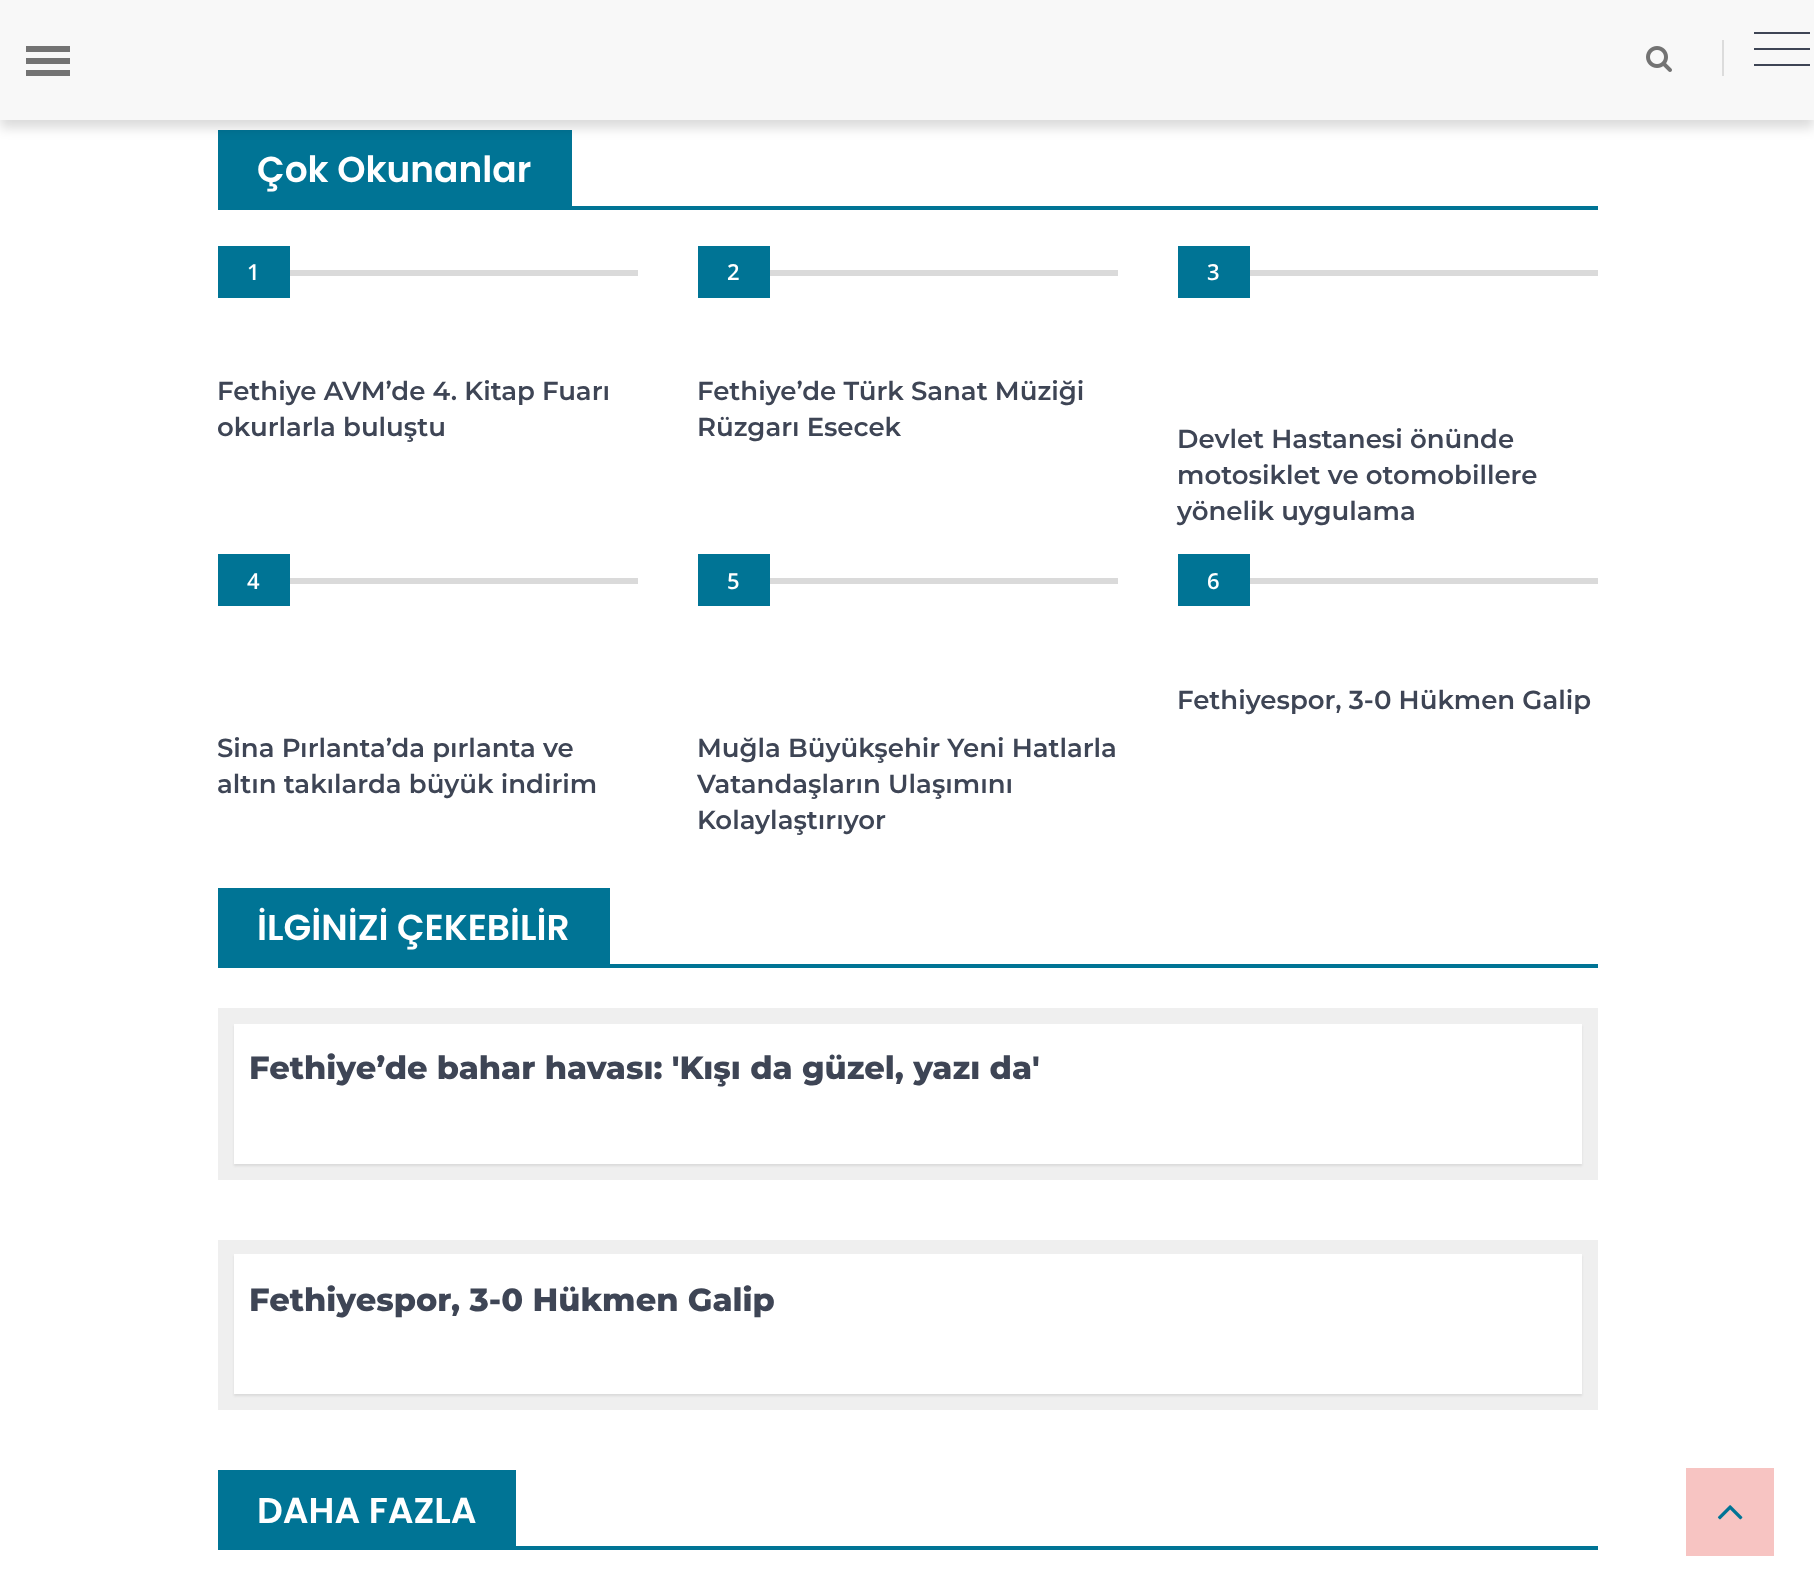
<!DOCTYPE html>
<meta charset="utf-8">
<style>body { margin: 0 } canvas { display: block }</style>
<canvas id="canvas" width="1814" height="1585"></canvas>
<img id="img1" src="images/1.png" hidden>
<img id="img2" src="images/2.png" hidden>
<script>
window.onload = function () {
    const canvas = document.getElementById('canvas');
    const context = canvas.getContext('2d');
    context.miterLimit = 4;
    context.fontKerning = 'normal';

    context.fillStyle = 'rgb(255, 255, 255)';
    context.fillRect(0, 0, 1814, 1585);
    context.fillStyle = 'rgb(0, 116, 149)';
    context.fillRect(218, 130, 354, 76);
    context.fillStyle = 'rgba(0, 0, 0, 0.14)';
    context.filter = 'blur(6px)';
    context.beginPath();
    context.rect(0, 8, 1814, 120);
    context.fill();
    context.filter = 'none';
    context.fillStyle = 'rgb(248, 248, 248)';
    context.fillRect(0, 0, 1814, 120);
    context.fillStyle = 'rgb(115, 115, 115)';
    context.fillRect(26, 46, 44, 6);
    context.fillRect(26, 58, 44, 6);
    context.fillRect(26, 70, 44, 6);
    context.fillStyle = 'rgb(220, 220, 220)';
    context.fillRect(1722, 40, 2, 36);
    context.drawImage(document.getElementById('img1'), 1646, 46, 26, 26);
    context.fillStyle = 'rgb(62, 69, 85)';
    context.fillRect(1754, 32, 56, 2);
    context.fillRect(1754, 48, 56, 2);
    context.fillRect(1754, 64, 56, 2);
    context.fillStyle = 'rgb(0, 116, 149)';
    context.fillRect(218, 206, 1380, 4);
    context.fillRect(218, 246, 72, 52);
    context.fillStyle = 'rgb(218, 218, 218)';
    context.fillRect(290, 270, 348, 6);
    context.fillStyle = 'rgb(0, 116, 149)';
    context.fillRect(698, 246, 72, 52);
    context.fillStyle = 'rgb(218, 218, 218)';
    context.fillRect(770, 270, 348, 6);
    context.fillStyle = 'rgb(0, 116, 149)';
    context.fillRect(1178, 246, 72, 52);
    context.fillStyle = 'rgb(218, 218, 218)';
    context.fillRect(1250, 270, 348, 6);
    context.fillStyle = 'rgb(0, 116, 149)';
    context.fillRect(218, 554, 72, 52);
    context.fillStyle = 'rgb(218, 218, 218)';
    context.fillRect(290, 578, 348, 6);
    context.fillStyle = 'rgb(0, 116, 149)';
    context.fillRect(698, 554, 72, 52);
    context.fillStyle = 'rgb(218, 218, 218)';
    context.fillRect(770, 578, 348, 6);
    context.fillStyle = 'rgb(0, 116, 149)';
    context.fillRect(1178, 554, 72, 52);
    context.fillStyle = 'rgb(218, 218, 218)';
    context.fillRect(1250, 578, 348, 6);
    context.fillStyle = 'rgb(0, 116, 149)';
    context.fillRect(218, 888, 392, 76);
    context.fillRect(218, 964, 1380, 4);
    context.fillStyle = 'rgb(239, 239, 239)';
    context.fillRect(218, 1008, 1380, 172);
    context.fillStyle = 'rgba(211, 211, 211, 0.75)';
    context.filter = 'blur(1px)';
    context.beginPath();
    context.rect(234, 1026, 1348, 140);
    context.fill();
    context.filter = 'none';
    context.fillStyle = 'rgb(255, 255, 255)';
    context.fillRect(234, 1024, 1348, 140);
    context.fillStyle = 'rgb(239, 239, 239)';
    context.fillRect(218, 1240, 1380, 170);
    context.fillStyle = 'rgba(211, 211, 211, 0.75)';
    context.filter = 'blur(1px)';
    context.beginPath();
    context.rect(234, 1256, 1348, 140);
    context.fill();
    context.filter = 'none';
    context.fillStyle = 'rgb(255, 255, 255)';
    context.fillRect(234, 1254, 1348, 140);
    context.fillStyle = 'rgb(0, 116, 149)';
    context.fillRect(218, 1470, 298, 76);
    context.fillRect(218, 1546, 1380, 4);
    context.fillStyle = 'rgb(247, 196, 194)';
    context.fillRect(1686, 1468, 88, 88);
    context.drawImage(document.getElementById('img2'), 1717, 1505, 26, 15);
    context.font = '600 36px Poppins';
    context.fillStyle = 'rgb(255, 255, 255)';
    context.fillText('Çok Okunanlar', 257, 182);
    context.font = '600 22px Open Sans';
    context.fillText('1', 247, 280);
    context.font = '600 26px Montserrat';
    context.fillStyle = 'rgb(62, 69, 85)';
    context.fillText('Fethiye AVM’de 4. Kitap Fuarı', 217, 400);
    context.fillText('okurlarla buluştu', 217, 436);
    context.font = '600 22px Open Sans';
    context.fillStyle = 'rgb(255, 255, 255)';
    context.fillText('2', 727, 280);
    context.font = '600 26px Montserrat';
    context.fillStyle = 'rgb(62, 69, 85)';
    context.fillText('Fethiye’de Türk Sanat Müziği', 697, 400);
    context.fillText('Rüzgarı Esecek', 697, 436);
    context.font = '600 22px Open Sans';
    context.fillStyle = 'rgb(255, 255, 255)';
    context.fillText('3', 1207, 280);
    context.font = '600 26px Montserrat';
    context.fillStyle = 'rgb(62, 69, 85)';
    context.fillText('Devlet Hastanesi önünde', 1177, 448);
    context.fillText('motosiklet ve otomobillere', 1177, 484);
    context.fillText('yönelik uygulama', 1177, 520);
    context.font = '600 22px Open Sans';
    context.fillStyle = 'rgb(255, 255, 255)';
    context.fillText('4', 247, 589);
    context.font = '600 26px Montserrat';
    context.fillStyle = 'rgb(62, 69, 85)';
    context.fillText('Sina Pırlanta’da pırlanta ve', 217, 757);
    context.fillText('altın takılarda büyük indirim', 217, 793);
    context.font = '600 22px Open Sans';
    context.fillStyle = 'rgb(255, 255, 255)';
    context.fillText('5', 727, 589);
    context.font = '600 26px Montserrat';
    context.fillStyle = 'rgb(62, 69, 85)';
    context.fillText('Muğla Büyükşehir Yeni Hatlarla', 697, 757);
    context.fillText('Vatandaşların Ulaşımını', 697, 793);
    context.fillText('Kolaylaştırıyor', 697, 829);
    context.font = '600 22px Open Sans';
    context.fillStyle = 'rgb(255, 255, 255)';
    context.fillText('6', 1207, 589);
    context.font = '600 26px Montserrat';
    context.fillStyle = 'rgb(62, 69, 85)';
    context.fillText('Fethiyespor, 3-0 Hükmen Galip', 1177, 709);
    context.font = '600 36px Poppins';
    context.fillStyle = 'rgb(255, 255, 255)';
    context.fillText('İLGİNİZİ ÇEKEBİLİR', 257, 940);
    context.font = '800 32px Montserrat';
    context.fillStyle = 'rgb(62, 69, 85)';
    context.fillText('Fethiye’de bahar havası: \'Kışı da güzel, yazı da\'', 249, 1079);
    context.fillText('Fethiyespor, 3-0 Hükmen Galip', 249, 1311);
    context.font = '600 36px Poppins';
    context.fillStyle = 'rgb(255, 255, 255)';
    context.fillText('DAHA FAZLA', 257, 1523);
};
</script>
